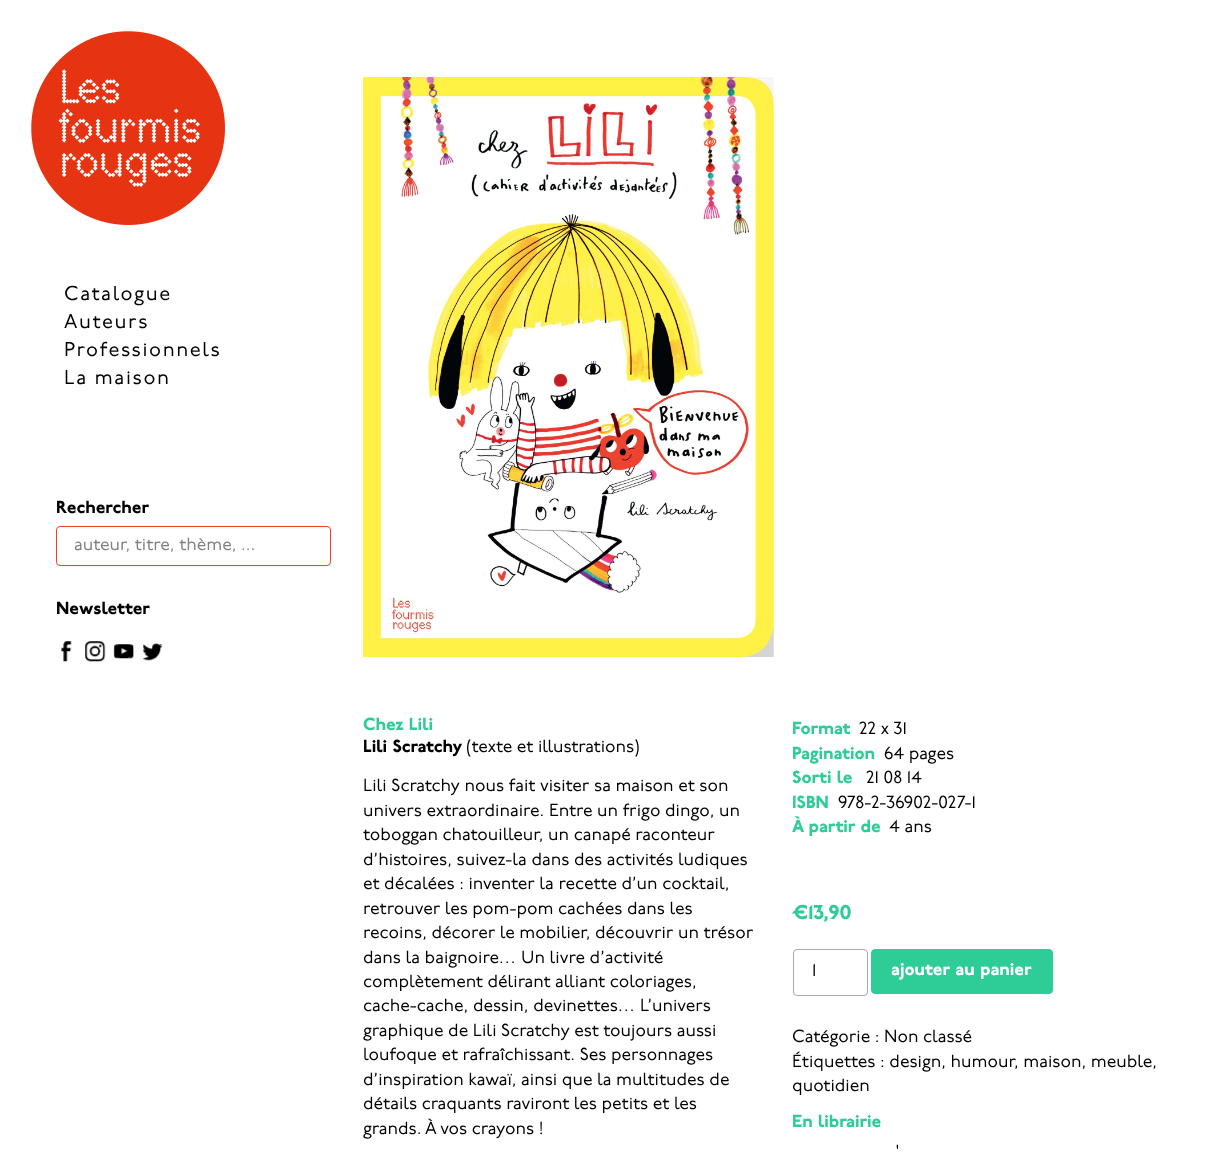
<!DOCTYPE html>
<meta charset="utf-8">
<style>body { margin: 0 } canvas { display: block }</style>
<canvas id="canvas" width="1214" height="1152"></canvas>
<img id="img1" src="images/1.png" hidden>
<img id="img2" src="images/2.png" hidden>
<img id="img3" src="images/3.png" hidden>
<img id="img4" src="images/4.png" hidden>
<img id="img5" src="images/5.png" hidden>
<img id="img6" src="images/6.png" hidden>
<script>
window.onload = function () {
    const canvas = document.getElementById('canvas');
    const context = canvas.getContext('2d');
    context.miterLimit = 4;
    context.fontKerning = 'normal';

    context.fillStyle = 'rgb(255, 255, 255)';
    context.fillRect(0, 0, 1214, 1152);
    context.drawImage(document.getElementById('img1'), 31, 31, 194, 194);
    context.beginPath();
    context.roundRect(56.5, 526.5, 274, 39, 3.5);
    context.strokeStyle = 'rgb(239, 65, 35)';
    context.stroke();
    context.drawImage(document.getElementById('img2'), 61, 641, 11, 21);
    context.drawImage(document.getElementById('img3'), 85, 641, 21, 21);
    context.drawImage(document.getElementById('img4'), 113, 644, 22, 15);
    context.drawImage(document.getElementById('img5'), 142, 643, 21, 18);
    context.drawImage(document.getElementById('img6'), 363, 77, 411, 580);
    context.beginPath();
    context.roundRect(793.5, 949.5, 74, 46, 3.5);
    context.strokeStyle = 'rgb(170, 170, 170)';
    context.stroke();
    context.fillStyle = 'rgb(46, 204, 151)';
    context.beginPath();
    context.roundRect(871.5, 949.5, 181, 44, 3.5);
    context.fill();
    context.strokeStyle = 'rgb(46, 204, 151)';
    context.stroke();
    context.letterSpacing = '1.6px';
    context.font = '20px "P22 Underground"';
    context.fillStyle = 'rgb(0, 0, 0)';
    context.fillText('Catalogue', 64, 300);
    context.fillText('Auteurs', 64, 328);
    context.fillText('Professionnels', 64, 356);
    context.fillText('La maison', 64, 384);
    context.letterSpacing = '0px';
    context.font = '900 17.5px "P22 Underground"';
    context.fillText('Rechercher', 56, 513);
    context.font = '17.5px "P22 Underground"';
    context.fillStyle = 'rgb(128, 128, 128)';
    context.fillText('auteur, titre, thème, ...', 74, 550);
    context.font = '900 17.5px "P22 Underground"';
    context.fillStyle = 'rgb(0, 0, 0)';
    context.fillText('Newsletter', 56, 614);
    context.fillStyle = 'rgb(46, 204, 151)';
    context.fillText('Chez Lili', 363, 730);
    context.fillStyle = 'rgb(0, 0, 0)';
    context.fillText('Lili Scratchy', 363, 752);
    context.font = '17.5px "P22 Underground"';
    context.fillText('(texte et illustrations)', 466, 752);
    context.fillText('Lili Scratchy nous fait visiter sa maison et son', 363, 791);
    context.fillText('univers extraordinaire. Entre un frigo dingo, un', 363, 816);
    context.fillText('toboggan chatouilleur, un canapé raconteur', 363, 840);
    context.fillText('d’histoires, suivez-la dans des activités ludiques', 363, 865);
    context.fillText('et décalées : inventer la recette d’un cocktail,', 363, 889);
    context.fillText('retrouver les pom-pom cachées dans les', 363, 914);
    context.fillText('recoins, décorer le mobilier, découvrir un trésor', 363, 938);
    context.fillText('dans la baignoire… Un livre d’activité', 363, 963);
    context.fillText('complètement délirant alliant coloriages,', 363, 987);
    context.fillText('cache-cache, dessin, devinettes… L’univers', 363, 1011);
    context.fillText('graphique de Lili Scratchy est toujours aussi', 363, 1036);
    context.fillText('loufoque et rafraîchissant. Ses personnages', 363, 1060);
    context.fillText('d’inspiration kawaï, ainsi que la multitudes de', 363, 1085);
    context.fillText('détails craquants raviront les petits et les', 363, 1109);
    context.fillText('grands. À vos crayons !', 363, 1134);
    context.fillStyle = 'rgb(255, 255, 255)';
    context.fillRect(362, 832, 1, 305);
    context.font = '900 17.5px "P22 Underground"';
    context.fillStyle = 'rgb(46, 204, 151)';
    context.fillText('Format', 792, 734);
    context.font = '17.5px "P22 Underground"';
    context.fillStyle = 'rgb(0, 0, 0)';
    context.fillText('22 x 31', 859, 734);
    context.font = '900 17.5px "P22 Underground"';
    context.fillStyle = 'rgb(46, 204, 151)';
    context.fillText('Pagination', 792, 759);
    context.font = '17.5px "P22 Underground"';
    context.fillStyle = 'rgb(0, 0, 0)';
    context.fillText('64 pages', 884, 759);
    context.font = '900 17.5px "P22 Underground"';
    context.fillStyle = 'rgb(46, 204, 151)';
    context.fillText('Sorti le', 792, 783);
    context.font = '17.5px "P22 Underground"';
    context.fillStyle = 'rgb(0, 0, 0)';
    context.fillText('21 08 14', 866, 783);
    context.font = '900 17.5px "P22 Underground"';
    context.fillStyle = 'rgb(46, 204, 151)';
    context.fillText('ISBN', 792, 808);
    context.font = '17.5px "P22 Underground"';
    context.fillStyle = 'rgb(0, 0, 0)';
    context.fillText('978-2-36902-027-1', 838, 808);
    context.font = '900 17.5px "P22 Underground"';
    context.fillStyle = 'rgb(46, 204, 151)';
    context.fillText('À partir de', 792, 832);
    context.font = '17.5px "P22 Underground"';
    context.fillStyle = 'rgb(0, 0, 0)';
    context.fillText('4 ans', 889, 832);
    context.font = '900 20px "P22 Underground"';
    context.fillStyle = 'rgb(46, 204, 151)';
    context.fillText('€13,90', 792, 919);
    context.font = '17.5px "P22 Underground"';
    context.fillStyle = 'rgb(0, 0, 0)';
    context.fillText('1', 812, 976);
    context.font = '900 17.5px "P22 Underground"';
    context.fillStyle = 'rgb(255, 255, 255)';
    context.fillText('ajouter au panier', 891, 975);
    context.font = '17.5px "P22 Underground"';
    context.fillStyle = 'rgb(0, 0, 0)';
    context.fillText('Catégorie : Non classé', 792, 1042);
    context.fillText('Étiquettes : design, humour', 792, 1067);
    context.fillText(', maison, meuble,', 1014, 1067);
    context.fillText('quotidien', 792, 1091);
    context.font = '900 17.5px "P22 Underground"';
    context.fillStyle = 'rgb(46, 204, 151)';
    context.fillText('En librairie', 792, 1127);
    context.font = '17.5px "P22 Underground"';
    context.fillStyle = 'rgb(0, 0, 0)';
    context.fillText('\'', 895, 1157);
};
</script>
